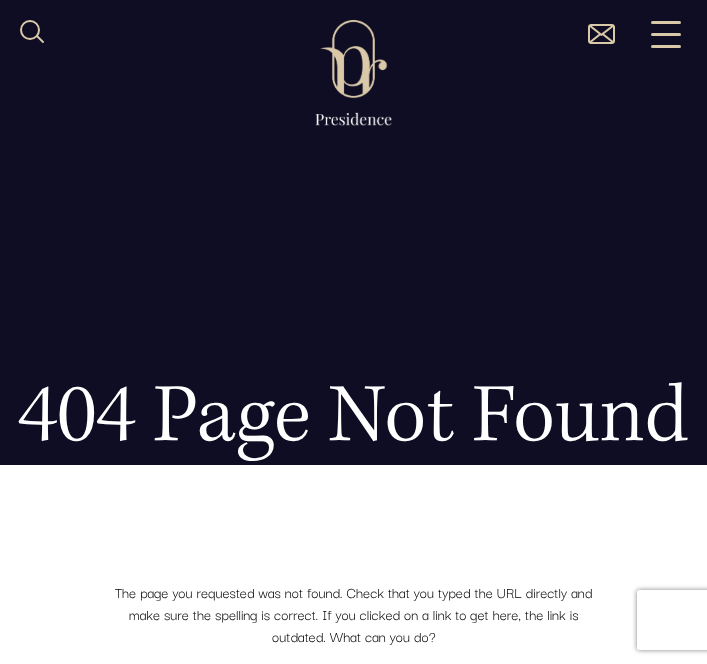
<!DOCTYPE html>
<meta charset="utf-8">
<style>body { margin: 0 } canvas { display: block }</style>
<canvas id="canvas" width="707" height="664"></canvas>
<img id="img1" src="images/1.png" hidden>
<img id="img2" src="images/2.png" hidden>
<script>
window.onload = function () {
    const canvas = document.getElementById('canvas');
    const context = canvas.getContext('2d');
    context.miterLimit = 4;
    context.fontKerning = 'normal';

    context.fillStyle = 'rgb(255, 255, 255)';
    context.fillRect(0, 0, 707, 664);
    context.fillStyle = 'rgb(15, 13, 35)';
    context.fillRect(0, 0, 707, 465);
    context.beginPath();
    context.arc(30, 30, 9, 0, 2 * Math.PI);
    context.strokeStyle = 'rgb(218, 201, 169)';
    context.lineWidth = 2;
    context.stroke();
    context.beginPath();
    context.moveTo(37, 36);
    context.lineTo(43, 42);
    context.lineCap = 'round';
    context.stroke();
    context.drawImage(document.getElementById('img1'), 315, 20, 77, 106);
    context.drawImage(document.getElementById('img2'), 588, 24, 27, 20);
    context.fillStyle = 'rgb(218, 201, 169)';
    context.beginPath();
    context.roundRect(651, 21, 30, 3, 1.5);
    context.fill();
    context.beginPath();
    context.roundRect(651, 33, 30, 3, 1.5);
    context.fill();
    context.beginPath();
    context.roundRect(651, 45, 30, 3, 1.5);
    context.fill();
    context.save();
    context.beginPath();
    context.moveTo(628, 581);
    context.lineTo(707, 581);
    context.lineTo(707, 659);
    context.lineTo(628, 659);
    context.closePath();
    context.moveTo(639, 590);
    context.lineTo(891, 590);
    context.bezierCurveTo(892, 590, 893, 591, 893, 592);
    context.lineTo(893, 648);
    context.bezierCurveTo(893, 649, 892, 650, 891, 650);
    context.lineTo(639, 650);
    context.bezierCurveTo(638, 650, 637, 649, 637, 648);
    context.lineTo(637, 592);
    context.bezierCurveTo(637, 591, 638, 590, 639, 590);
    context.closePath();
    context.clip('evenodd');
    context.fillStyle = 'rgb(128, 128, 128)';
    context.filter = 'blur(2.5px)';
    context.beginPath();
    context.roundRect(637, 590, 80, 60, 2);
    context.fill();
    context.filter = 'none';
    context.restore();
    context.font = '300 84.75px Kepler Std';
    context.fillStyle = 'rgb(255, 255, 255)';
    context.fillText('404 Page Not Found', 18, 440);
    context.font = '16px Darker Grotesque';
    context.fillStyle = 'rgb(0, 0, 0)';
    context.fillText('The page you requested was not found. Check that you typed the URL directly and', 115, 598);
    context.fillText('make sure the spelling is correct. If you clicked on a link to get here, the link is', 129, 620);
    context.fillText('outdated. What can you do?', 272, 642);
};
</script>
